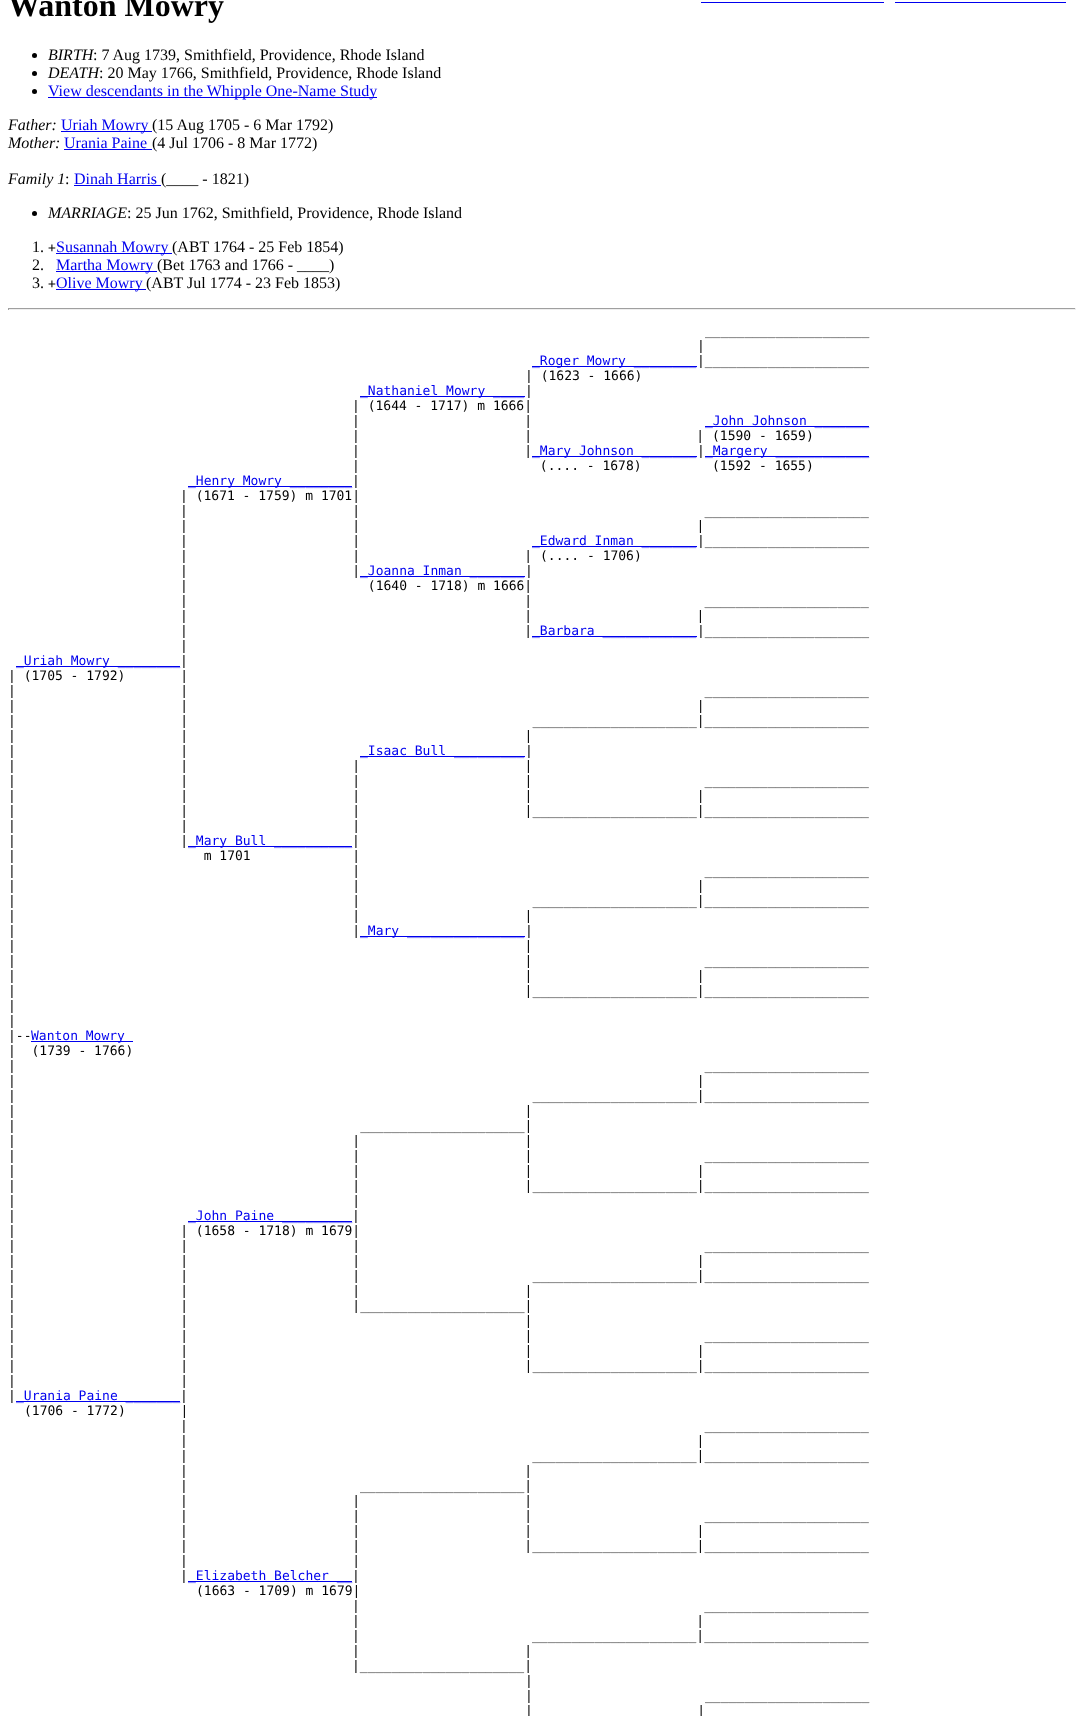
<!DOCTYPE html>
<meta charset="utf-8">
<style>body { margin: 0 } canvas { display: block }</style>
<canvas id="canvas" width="1084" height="1716"></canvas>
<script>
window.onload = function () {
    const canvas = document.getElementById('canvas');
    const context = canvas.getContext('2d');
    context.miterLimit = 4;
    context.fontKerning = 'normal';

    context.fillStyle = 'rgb(255, 255, 255)';
    context.fillRect(0, 0, 1084, 1716);
    context.fillStyle = 'rgb(0, 0, 238)';
    context.fillRect(701, 2, 183, 1);
    context.fillRect(895, 2, 171, 1);
    context.fillStyle = 'rgb(0, 0, 0)';
    context.beginPath();
    context.arc(34.5, 55.5, 2.5, 0, 2 * Math.PI);
    context.fill();
    context.beginPath();
    context.arc(34.5, 73.5, 2.5, 0, 2 * Math.PI);
    context.fill();
    context.beginPath();
    context.arc(34.5, 91.5, 2.5, 0, 2 * Math.PI);
    context.fill();
    context.fillStyle = 'rgb(0, 0, 238)';
    context.fillRect(48, 97, 329, 1);
    context.fillRect(61, 131, 91, 1);
    context.fillRect(64, 149, 88, 1);
    context.fillRect(74, 185, 87, 1);
    context.fillStyle = 'rgb(0, 0, 0)';
    context.beginPath();
    context.arc(34.5, 213.5, 2.5, 0, 2 * Math.PI);
    context.fill();
    context.fillStyle = 'rgb(0, 0, 238)';
    context.fillRect(56, 253, 116, 1);
    context.fillRect(56, 271, 101, 1);
    context.fillRect(56, 289, 90, 1);
    context.fillStyle = 'rgb(159, 159, 159)';
    context.fillRect(8, 308, 1068, 1);
    context.fillStyle = 'rgb(238, 238, 238)';
    context.fillRect(1075, 308, 1, 2);
    context.fillRect(8, 309, 1068, 1);
    context.fillStyle = 'rgb(159, 159, 159)';
    context.fillRect(8, 308, 1, 2);
    context.fillStyle = 'rgb(0, 0, 238)';
    context.fillRect(532, 366, 165, 1);
    context.fillRect(360, 396, 165, 1);
    context.fillRect(705, 426, 164, 1);
    context.fillRect(532, 456, 165, 1);
    context.fillRect(705, 456, 164, 1);
    context.fillRect(188, 486, 164, 1);
    context.fillRect(532, 546, 165, 1);
    context.fillRect(360, 576, 165, 1);
    context.fillRect(532, 636, 165, 1);
    context.fillRect(16, 666, 164, 1);
    context.fillRect(360, 756, 165, 1);
    context.fillRect(188, 846, 164, 1);
    context.fillRect(360, 936, 165, 1);
    context.fillRect(31, 1041, 102, 1);
    context.fillRect(188, 1221, 164, 1);
    context.fillRect(16, 1401, 164, 1);
    context.fillRect(188, 1581, 164, 1);
    context.font = 'bold 32px Liberation Serif';
    context.fillStyle = 'rgb(0, 0, 0)';
    context.fillText('Wanton Mowry', 8, 16);
    context.font = 'italic 16px Liberation Serif';
    context.fillText('BIRTH', 48, 60);
    context.font = '16px Liberation Serif';
    context.fillText(': 7 Aug 1739, Smithfield, Providence, Rhode Island', 93, 60);
    context.font = 'italic 16px Liberation Serif';
    context.fillText('DEATH', 48, 78);
    context.font = '16px Liberation Serif';
    context.fillText(': 20 May 1766, Smithfield, Providence, Rhode Island', 99, 78);
    context.fillStyle = 'rgb(0, 0, 238)';
    context.fillText('View descendants in the Whipple One-Name Study', 48, 96);
    context.font = 'italic 16px Liberation Serif';
    context.fillStyle = 'rgb(0, 0, 0)';
    context.fillText('Father:', 8, 130);
    context.font = '16px Liberation Serif';
    context.fillStyle = 'rgb(0, 0, 238)';
    context.fillText('Uriah Mowry', 61, 130);
    context.fillStyle = 'rgb(0, 0, 0)';
    context.fillText('(15 Aug 1705 - 6 Mar 1792)', 152, 130);
    context.font = 'italic 16px Liberation Serif';
    context.fillText('Mother:', 8, 148);
    context.font = '16px Liberation Serif';
    context.fillStyle = 'rgb(0, 0, 238)';
    context.fillText('Urania Paine', 64, 148);
    context.fillStyle = 'rgb(0, 0, 0)';
    context.fillText('(4 Jul 1706 - 8 Mar 1772)', 152, 148);
    context.font = 'italic 16px Liberation Serif';
    context.fillText('Family 1', 8, 184);
    context.font = '16px Liberation Serif';
    context.fillText(':', 65, 184);
    context.fillStyle = 'rgb(0, 0, 238)';
    context.fillText('Dinah Harris', 74, 184);
    context.fillStyle = 'rgb(0, 0, 0)';
    context.fillText('(____ - 1821)', 161, 184);
    context.font = 'italic 16px Liberation Serif';
    context.fillText('MARRIAGE', 48, 218);
    context.font = '16px Liberation Serif';
    context.fillText(': 25 Jun 1762, Smithfield, Providence, Rhode Island', 127, 218);
    context.fillText('1.', 32, 252);
    context.font = '13px DejaVu Sans Mono';
    context.fillText('+', 48, 252);
    context.font = '16px Liberation Serif';
    context.fillStyle = 'rgb(0, 0, 238)';
    context.fillText('Susannah Mowry', 56, 252);
    context.fillStyle = 'rgb(0, 0, 0)';
    context.fillText('(ABT 1764 - 25 Feb 1854)', 172, 252);
    context.fillText('2.', 32, 270);
    context.fillStyle = 'rgb(0, 0, 238)';
    context.fillText('Martha Mowry', 56, 270);
    context.fillStyle = 'rgb(0, 0, 0)';
    context.fillText('(Bet 1763 and 1766 - ____)', 157, 270);
    context.fillText('3.', 32, 288);
    context.font = '13px DejaVu Sans Mono';
    context.fillText('+', 48, 288);
    context.font = '16px Liberation Serif';
    context.fillStyle = 'rgb(0, 0, 238)';
    context.fillText('Olive Mowry', 56, 288);
    context.fillStyle = 'rgb(0, 0, 0)';
    context.fillText('(ABT Jul 1774 - 23 Feb 1853)', 146, 288);
    context.font = '13px DejaVu Sans Mono';
    context.fillText('_____________________', 705, 335);
    context.fillText('|', 697, 350);
    context.fillStyle = 'rgb(0, 0, 238)';
    context.fillText('_Roger Mowry ________', 532, 365);
    context.fillStyle = 'rgb(0, 0, 0)';
    context.fillText('|_____________________', 697, 365);
    context.fillText('| (1623 - 1666)', 525, 380);
    context.fillStyle = 'rgb(0, 0, 238)';
    context.fillText('_Nathaniel Mowry ____', 360, 395);
    context.fillStyle = 'rgb(0, 0, 0)';
    context.fillText('|', 525, 395);
    context.fillText('| (1644 - 1717) m 1666|', 352, 410);
    context.fillText('|                     |', 352, 425);
    context.fillStyle = 'rgb(0, 0, 238)';
    context.fillText('_John Johnson _______', 705, 425);
    context.fillStyle = 'rgb(0, 0, 0)';
    context.fillText('|                     |                     | (1590 - 1659)', 352, 440);
    context.fillText('|                     |', 352, 455);
    context.fillStyle = 'rgb(0, 0, 238)';
    context.fillText('_Mary Johnson _______', 532, 455);
    context.fillStyle = 'rgb(0, 0, 0)';
    context.fillText('|', 697, 455);
    context.fillStyle = 'rgb(0, 0, 238)';
    context.fillText('_Margery ____________', 705, 455);
    context.fillStyle = 'rgb(0, 0, 0)';
    context.fillText('|                       (.... - 1678)         (1592 - 1655)', 352, 470);
    context.fillStyle = 'rgb(0, 0, 238)';
    context.fillText('_Henry Mowry ________', 188, 485);
    context.fillStyle = 'rgb(0, 0, 0)';
    context.fillText('|', 352, 485);
    context.fillText('| (1671 - 1759) m 1701|', 180, 500);
    context.fillText('|                     |                                            _____________________', 180, 515);
    context.fillText('|                     |                                           |', 180, 530);
    context.fillText('|                     |', 180, 545);
    context.fillStyle = 'rgb(0, 0, 238)';
    context.fillText('_Edward Inman _______', 532, 545);
    context.fillStyle = 'rgb(0, 0, 0)';
    context.fillText('|_____________________', 697, 545);
    context.fillText('|                     |                     | (.... - 1706)', 180, 560);
    context.fillText('|                     |', 180, 575);
    context.fillStyle = 'rgb(0, 0, 238)';
    context.fillText('_Joanna Inman _______', 360, 575);
    context.fillStyle = 'rgb(0, 0, 0)';
    context.fillText('|', 525, 575);
    context.fillText('|                       (1640 - 1718) m 1666|', 180, 590);
    context.fillText('|                                           |                      _____________________', 180, 605);
    context.fillText('|                                           |                     |', 180, 620);
    context.fillText('|                                           |', 180, 635);
    context.fillStyle = 'rgb(0, 0, 238)';
    context.fillText('_Barbara ____________', 532, 635);
    context.fillStyle = 'rgb(0, 0, 0)';
    context.fillText('|_____________________', 697, 635);
    context.fillText('|', 180, 650);
    context.fillStyle = 'rgb(0, 0, 238)';
    context.fillText('_Uriah Mowry ________', 16, 665);
    context.fillStyle = 'rgb(0, 0, 0)';
    context.fillText('|', 180, 665);
    context.fillText('| (1705 - 1792)       |', 8, 680);
    context.fillText('|                     |                                                                  _____________________', 8, 695);
    context.fillText('|                     |                                                                 |', 8, 710);
    context.fillText('|                     |                                            _____________________|_____________________', 8, 725);
    context.fillText('|                     |                                           |', 8, 740);
    context.fillText('|                     |', 8, 755);
    context.fillStyle = 'rgb(0, 0, 238)';
    context.fillText('_Isaac Bull _________', 360, 755);
    context.fillStyle = 'rgb(0, 0, 0)';
    context.fillText('|', 525, 755);
    context.fillText('|                     |                     |                     |', 8, 770);
    context.fillText('|                     |                     |                     |                      _____________________', 8, 785);
    context.fillText('|                     |                     |                     |                     |', 8, 800);
    context.fillText('|                     |                     |                     |_____________________|_____________________', 8, 815);
    context.fillText('|                     |                     |', 8, 830);
    context.fillText('|                     |', 8, 845);
    context.fillStyle = 'rgb(0, 0, 238)';
    context.fillText('_Mary Bull __________', 188, 845);
    context.fillStyle = 'rgb(0, 0, 0)';
    context.fillText('|', 352, 845);
    context.fillText('|                        m 1701             |', 8, 860);
    context.fillText('|                                           |                                            _____________________', 8, 875);
    context.fillText('|                                           |                                           |', 8, 890);
    context.fillText('|                                           |                      _____________________|_____________________', 8, 905);
    context.fillText('|                                           |                     |', 8, 920);
    context.fillText('|                                           |', 8, 935);
    context.fillStyle = 'rgb(0, 0, 238)';
    context.fillText('_Mary _______________', 360, 935);
    context.fillStyle = 'rgb(0, 0, 0)';
    context.fillText('|', 525, 935);
    context.fillText('|                                                                 |', 8, 950);
    context.fillText('|                                                                 |                      _____________________', 8, 965);
    context.fillText('|                                                                 |                     |', 8, 980);
    context.fillText('|                                                                 |_____________________|_____________________', 8, 995);
    context.fillText('|', 8, 1010);
    context.fillText('|', 8, 1025);
    context.fillText('|--', 8, 1040);
    context.fillStyle = 'rgb(0, 0, 238)';
    context.fillText('Wanton Mowry', 31, 1040);
    context.fillStyle = 'rgb(0, 0, 0)';
    context.fillText('|  (1739 - 1766)', 8, 1055);
    context.fillText('|                                                                                        _____________________', 8, 1070);
    context.fillText('|                                                                                       |', 8, 1085);
    context.fillText('|                                                                  _____________________|_____________________', 8, 1100);
    context.fillText('|                                                                 |', 8, 1115);
    context.fillText('|                                            _____________________|', 8, 1130);
    context.fillText('|                                           |                     |', 8, 1145);
    context.fillText('|                                           |                     |                      _____________________', 8, 1160);
    context.fillText('|                                           |                     |                     |', 8, 1175);
    context.fillText('|                                           |                     |_____________________|_____________________', 8, 1190);
    context.fillText('|                                           |', 8, 1205);
    context.fillText('|', 8, 1220);
    context.fillStyle = 'rgb(0, 0, 238)';
    context.fillText('_John Paine _________', 188, 1220);
    context.fillStyle = 'rgb(0, 0, 0)';
    context.fillText('|', 352, 1220);
    context.fillText('|                     | (1658 - 1718) m 1679|', 8, 1235);
    context.fillText('|                     |                     |                                            _____________________', 8, 1250);
    context.fillText('|                     |                     |                                           |', 8, 1265);
    context.fillText('|                     |                     |                      _____________________|_____________________', 8, 1280);
    context.fillText('|                     |                     |                     |', 8, 1295);
    context.fillText('|                     |                     |_____________________|', 8, 1310);
    context.fillText('|                     |                                           |', 8, 1325);
    context.fillText('|                     |                                           |                      _____________________', 8, 1340);
    context.fillText('|                     |                                           |                     |', 8, 1355);
    context.fillText('|                     |                                           |_____________________|_____________________', 8, 1370);
    context.fillText('|                     |', 8, 1385);
    context.fillText('|', 8, 1400);
    context.fillStyle = 'rgb(0, 0, 238)';
    context.fillText('_Urania Paine _______', 16, 1400);
    context.fillStyle = 'rgb(0, 0, 0)';
    context.fillText('|', 180, 1400);
    context.fillText('(1706 - 1772)       |', 24, 1415);
    context.fillText('|                                                                  _____________________', 180, 1430);
    context.fillText('|                                                                 |', 180, 1445);
    context.fillText('|                                            _____________________|_____________________', 180, 1460);
    context.fillText('|                                           |', 180, 1475);
    context.fillText('|                      _____________________|', 180, 1490);
    context.fillText('|                     |                     |', 180, 1505);
    context.fillText('|                     |                     |                      _____________________', 180, 1520);
    context.fillText('|                     |                     |                     |', 180, 1535);
    context.fillText('|                     |                     |_____________________|_____________________', 180, 1550);
    context.fillText('|                     |', 180, 1565);
    context.fillText('|', 180, 1580);
    context.fillStyle = 'rgb(0, 0, 238)';
    context.fillText('_Elizabeth Belcher __', 188, 1580);
    context.fillStyle = 'rgb(0, 0, 0)';
    context.fillText('|', 352, 1580);
    context.fillText('(1663 - 1709) m 1679|', 196, 1595);
    context.fillText('|                                            _____________________', 352, 1610);
    context.fillText('|                                           |', 352, 1625);
    context.fillText('|                      _____________________|_____________________', 352, 1640);
    context.fillText('|                     |', 352, 1655);
    context.fillText('|_____________________|', 352, 1670);
    context.fillText('|', 525, 1685);
    context.fillText('|                      _____________________', 525, 1700);
    context.fillText('|                     |', 525, 1715);
};
</script>
